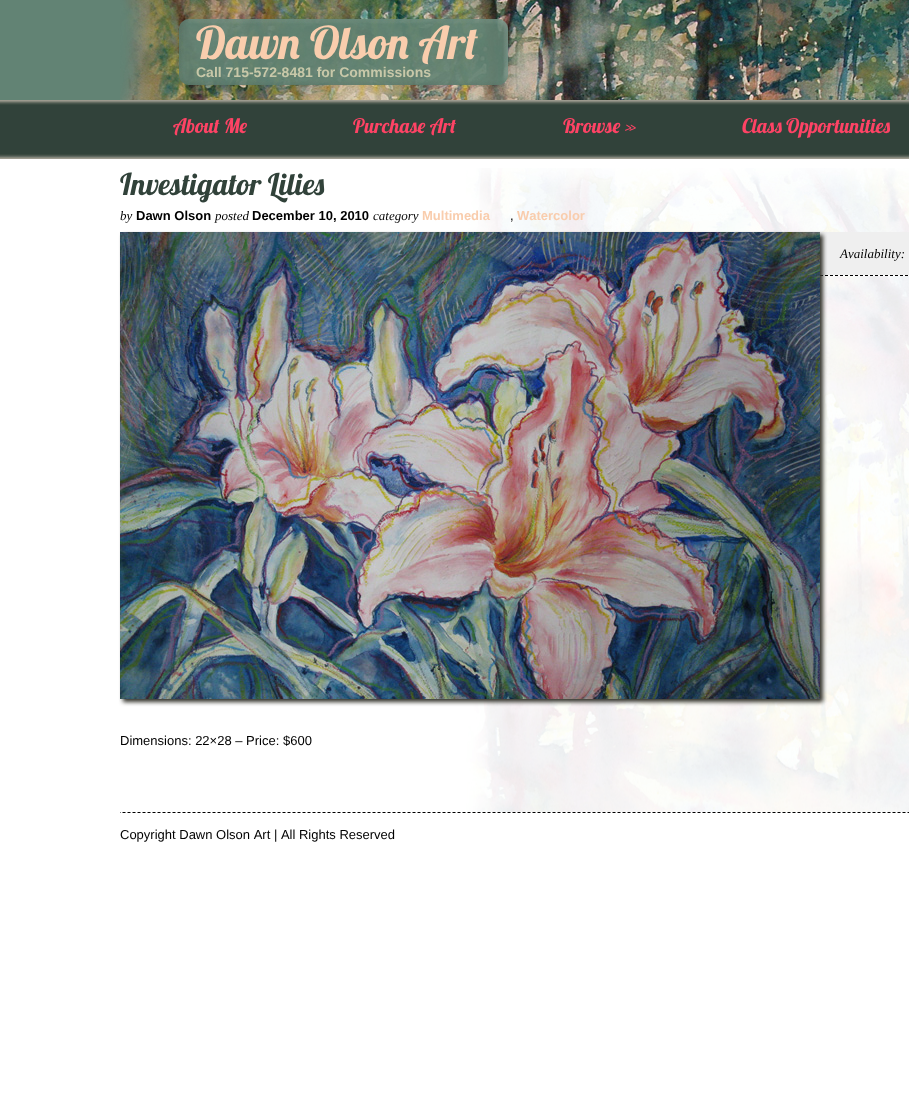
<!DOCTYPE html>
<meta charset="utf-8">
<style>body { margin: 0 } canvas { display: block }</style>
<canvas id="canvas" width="909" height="1102"></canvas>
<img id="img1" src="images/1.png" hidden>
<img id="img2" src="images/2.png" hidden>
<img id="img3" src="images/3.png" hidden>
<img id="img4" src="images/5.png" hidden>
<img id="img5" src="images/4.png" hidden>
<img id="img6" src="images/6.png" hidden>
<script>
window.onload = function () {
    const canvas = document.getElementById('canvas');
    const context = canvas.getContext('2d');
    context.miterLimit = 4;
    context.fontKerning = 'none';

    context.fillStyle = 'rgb(255, 255, 255)';
    context.fillRect(0, 0, 909, 1102);
    context.fillStyle = 'rgb(98, 131, 116)';
    context.fillRect(0, 0, 120, 100);
    context.drawImage(document.getElementById('img1'), 120, 0, 789, 100);
    context.drawImage(document.getElementById('img2'), 0, 100, 909, 59);
    context.drawImage(document.getElementById('img3'), 466, 168, 443, 644);
    context.fillStyle = 'rgb(239, 239, 239)';
    context.fillRect(820, 232, 89, 43);
    context.drawImage(document.getElementById('img4'), 820, 275, 89, 1);
    context.fillStyle = 'rgb(50, 50, 42)';
    context.filter = 'blur(2px)';
    context.beginPath();
    context.rect(123, 235, 700, 467);
    context.fill();
    context.filter = 'none';
    context.drawImage(document.getElementById('img5'), 120, 232, 700, 467);
    context.drawImage(document.getElementById('img6'), 120, 812, 789, 1);
    context.font = '45px Lobster';
    context.fillStyle = 'rgb(249, 205, 173)';
    context.fillText('Dawn Olson Art', 196, 59);
    context.font = 'bold 14px Liberation Sans';
    context.fillStyle = 'rgb(200, 200, 169)';
    context.fillText('Call 715-572-8481 for Commissions', 196, 77);
    context.font = '20px Lobster';
    context.fillStyle = 'rgb(254, 67, 101)';
    context.fillText('About Me', 173, 133);
    context.fillText('Purchase Art', 353, 133);
    context.fillText('Browse »', 563, 133);
    context.fillText('Class Opportunities', 742, 133);
    context.font = '30px Lobster';
    context.fillStyle = 'rgb(49, 66, 58)';
    context.fillText('Investigator Lilies', 120, 195);
    context.font = 'italic 13px Liberation Serif';
    context.fillStyle = 'rgb(0, 0, 0)';
    context.fillText('by', 120, 220);
    context.font = 'bold 13px Liberation Sans';
    context.fillText('Dawn Olson', 136, 220);
    context.font = 'italic 13px Liberation Serif';
    context.fillText('posted', 215, 220);
    context.font = 'bold 13px Liberation Sans';
    context.fillText('December 10, 2010', 252, 220);
    context.font = 'italic 13px Liberation Serif';
    context.fillText('category', 373, 220);
    context.font = 'bold 13px Liberation Sans';
    context.fillStyle = 'rgb(249, 205, 173)';
    context.fillText('Multimedia', 422, 220);
    context.font = '13px Liberation Sans';
    context.fillStyle = 'rgb(0, 0, 0)';
    context.fillText(',', 510, 220);
    context.font = 'bold 13px Liberation Sans';
    context.fillStyle = 'rgb(249, 205, 173)';
    context.fillText('Watercolor', 517, 220);
    context.font = 'italic 13px Liberation Serif';
    context.fillStyle = 'rgb(0, 0, 0)';
    context.fillText('Availability:', 840, 258);
    context.font = '13px Liberation Sans';
    context.fillText('Dimensions: 22×28 – Price: $600', 120, 745);
    context.fillText('Copyright Dawn Olson Art | All Rights Reserved', 120, 839);
};
</script>
